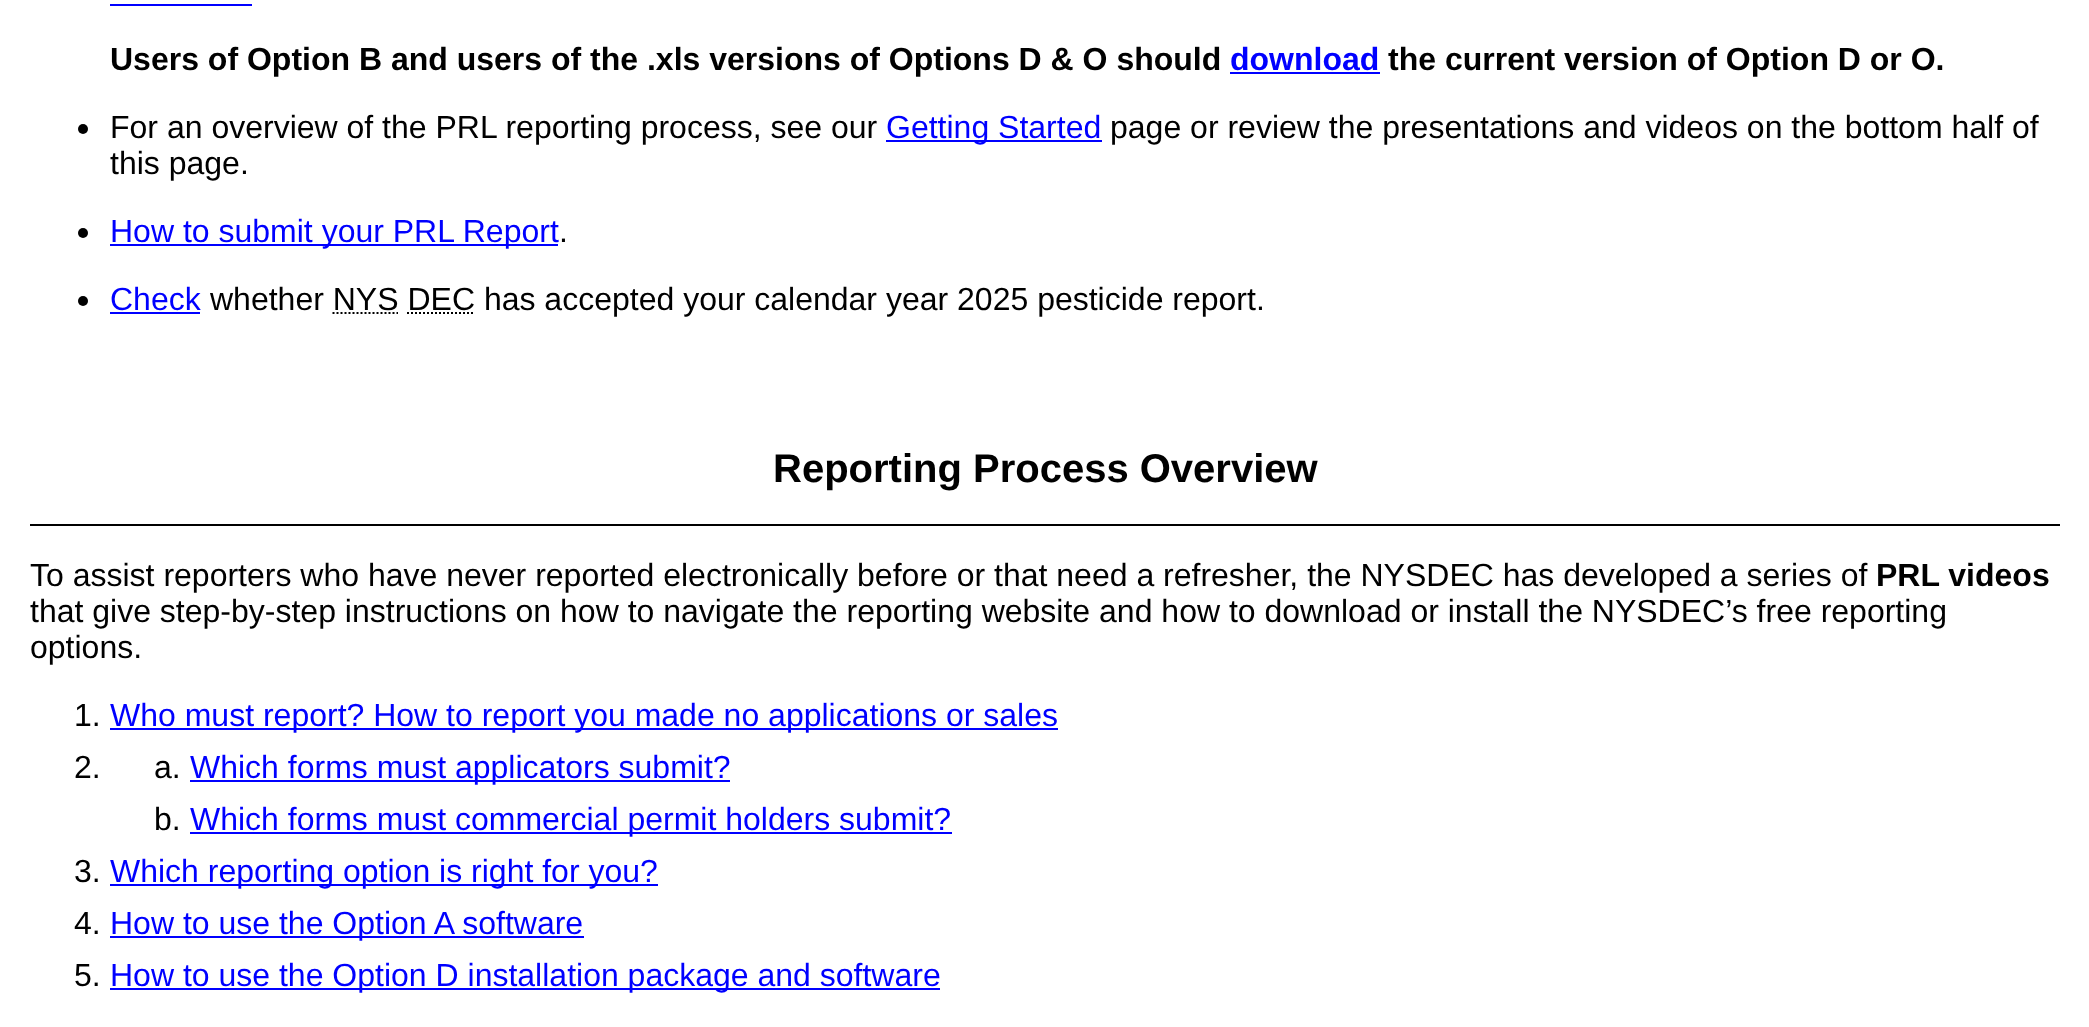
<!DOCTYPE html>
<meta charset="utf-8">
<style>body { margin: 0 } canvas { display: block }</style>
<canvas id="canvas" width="2089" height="1027"></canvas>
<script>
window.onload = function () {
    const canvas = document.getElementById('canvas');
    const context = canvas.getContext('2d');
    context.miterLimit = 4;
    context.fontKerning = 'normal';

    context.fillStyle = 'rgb(255, 255, 255)';
    context.fillRect(0, 0, 2089, 1027);
    context.fillStyle = 'rgb(0, 0, 255)';
    context.fillRect(110, 4, 142, 2);
    context.fillRect(1230, 72, 150, 2);
    context.fillStyle = 'rgb(0, 0, 0)';
    context.beginPath();
    context.arc(83, 129, 5, 0, 2 * Math.PI);
    context.fill();
    context.fillStyle = 'rgb(0, 0, 255)';
    context.fillRect(886, 140, 216, 2);
    context.fillStyle = 'rgb(0, 0, 0)';
    context.beginPath();
    context.arc(83, 233, 5, 0, 2 * Math.PI);
    context.fill();
    context.fillStyle = 'rgb(0, 0, 255)';
    context.fillRect(110, 244, 448, 2);
    context.fillStyle = 'rgb(0, 0, 0)';
    context.beginPath();
    context.arc(83, 301, 5, 0, 2 * Math.PI);
    context.fill();
    context.fillStyle = 'rgb(0, 0, 255)';
    context.fillRect(110, 312, 90, 2);
    context.beginPath();
    context.moveTo(332.5, 313);
    context.lineTo(398, 313);
    context.strokeStyle = 'rgb(0, 0, 0)';
    context.lineWidth = 2;
    context.setLineDash([2, 2]);
    context.stroke();
    context.beginPath();
    context.moveTo(407, 313);
    context.lineTo(474.5, 313);
    context.stroke();
    context.fillStyle = 'rgb(0, 0, 0)';
    context.fillRect(30, 524, 2030, 2);
    context.fillStyle = 'rgb(0, 0, 255)';
    context.fillRect(110, 728, 948, 2);
    context.fillRect(190, 780, 540, 2);
    context.fillRect(190, 832, 762, 2);
    context.fillRect(110, 884, 548, 2);
    context.fillRect(110, 936, 474, 2);
    context.fillRect(110, 988, 830, 2);
    context.font = 'bold 32px Liberation Sans';
    context.fillStyle = 'rgb(0, 0, 0)';
    context.fillText('Users of Option B and users of the .xls versions of Options D & O should', 110, 70);
    context.fillStyle = 'rgb(0, 0, 255)';
    context.fillText('download', 1230, 70);
    context.fillStyle = 'rgb(0, 0, 0)';
    context.fillText('the current version of Option D or O.', 1388, 70);
    context.font = '32px Liberation Sans';
    context.fillText('For an overview of the PRL reporting process, see our', 110, 138);
    context.fillStyle = 'rgb(0, 0, 255)';
    context.fillText('Getting Started', 886, 138);
    context.fillStyle = 'rgb(0, 0, 0)';
    context.fillText('page or review the presentations and videos on the bottom half of', 1110, 138);
    context.fillText('this page.', 110, 174);
    context.fillStyle = 'rgb(0, 0, 255)';
    context.fillText('How to submit your PRL Report', 110, 242);
    context.fillStyle = 'rgb(0, 0, 0)';
    context.fillText('.', 559, 242);
    context.fillStyle = 'rgb(0, 0, 255)';
    context.fillText('Check', 110, 310);
    context.fillStyle = 'rgb(0, 0, 0)';
    context.fillText('whether NYS DEC has accepted your calendar year 2025 pesticide report.', 210, 310);
    context.font = 'bold 40px Liberation Sans';
    context.fillText('Reporting Process Overview', 773, 482);
    context.font = '32px Liberation Sans';
    context.fillText('To assist reporters who have never reported electronically before or that need a refresher, the NYSDEC has developed a series of', 30, 586);
    context.font = 'bold 32px Liberation Sans';
    context.fillText('PRL videos', 1876, 586);
    context.font = '32px Liberation Sans';
    context.fillText('that give step-by-step instructions on how to navigate the reporting website and how to download or install the NYSDEC’s free reporting', 30, 622);
    context.fillText('options.', 30, 658);
    context.fillText('1.', 74, 726);
    context.fillStyle = 'rgb(0, 0, 255)';
    context.fillText('Who must report? How to report you made no applications or sales', 110, 726);
    context.fillStyle = 'rgb(0, 0, 0)';
    context.fillText('2.', 74, 778);
    context.fillText('a.', 154, 778);
    context.fillStyle = 'rgb(0, 0, 255)';
    context.fillText('Which forms must applicators submit?', 190, 778);
    context.fillStyle = 'rgb(0, 0, 0)';
    context.fillText('b.', 154, 830);
    context.fillStyle = 'rgb(0, 0, 255)';
    context.fillText('Which forms must commercial permit holders submit?', 190, 830);
    context.fillStyle = 'rgb(0, 0, 0)';
    context.fillText('3.', 74, 882);
    context.fillStyle = 'rgb(0, 0, 255)';
    context.fillText('Which reporting option is right for you?', 110, 882);
    context.fillStyle = 'rgb(0, 0, 0)';
    context.fillText('4.', 74, 934);
    context.fillStyle = 'rgb(0, 0, 255)';
    context.fillText('How to use the Option A software', 110, 934);
    context.fillStyle = 'rgb(0, 0, 0)';
    context.fillText('5.', 74, 986);
    context.fillStyle = 'rgb(0, 0, 255)';
    context.fillText('How to use the Option D installation package and software', 110, 986);
};
</script>
